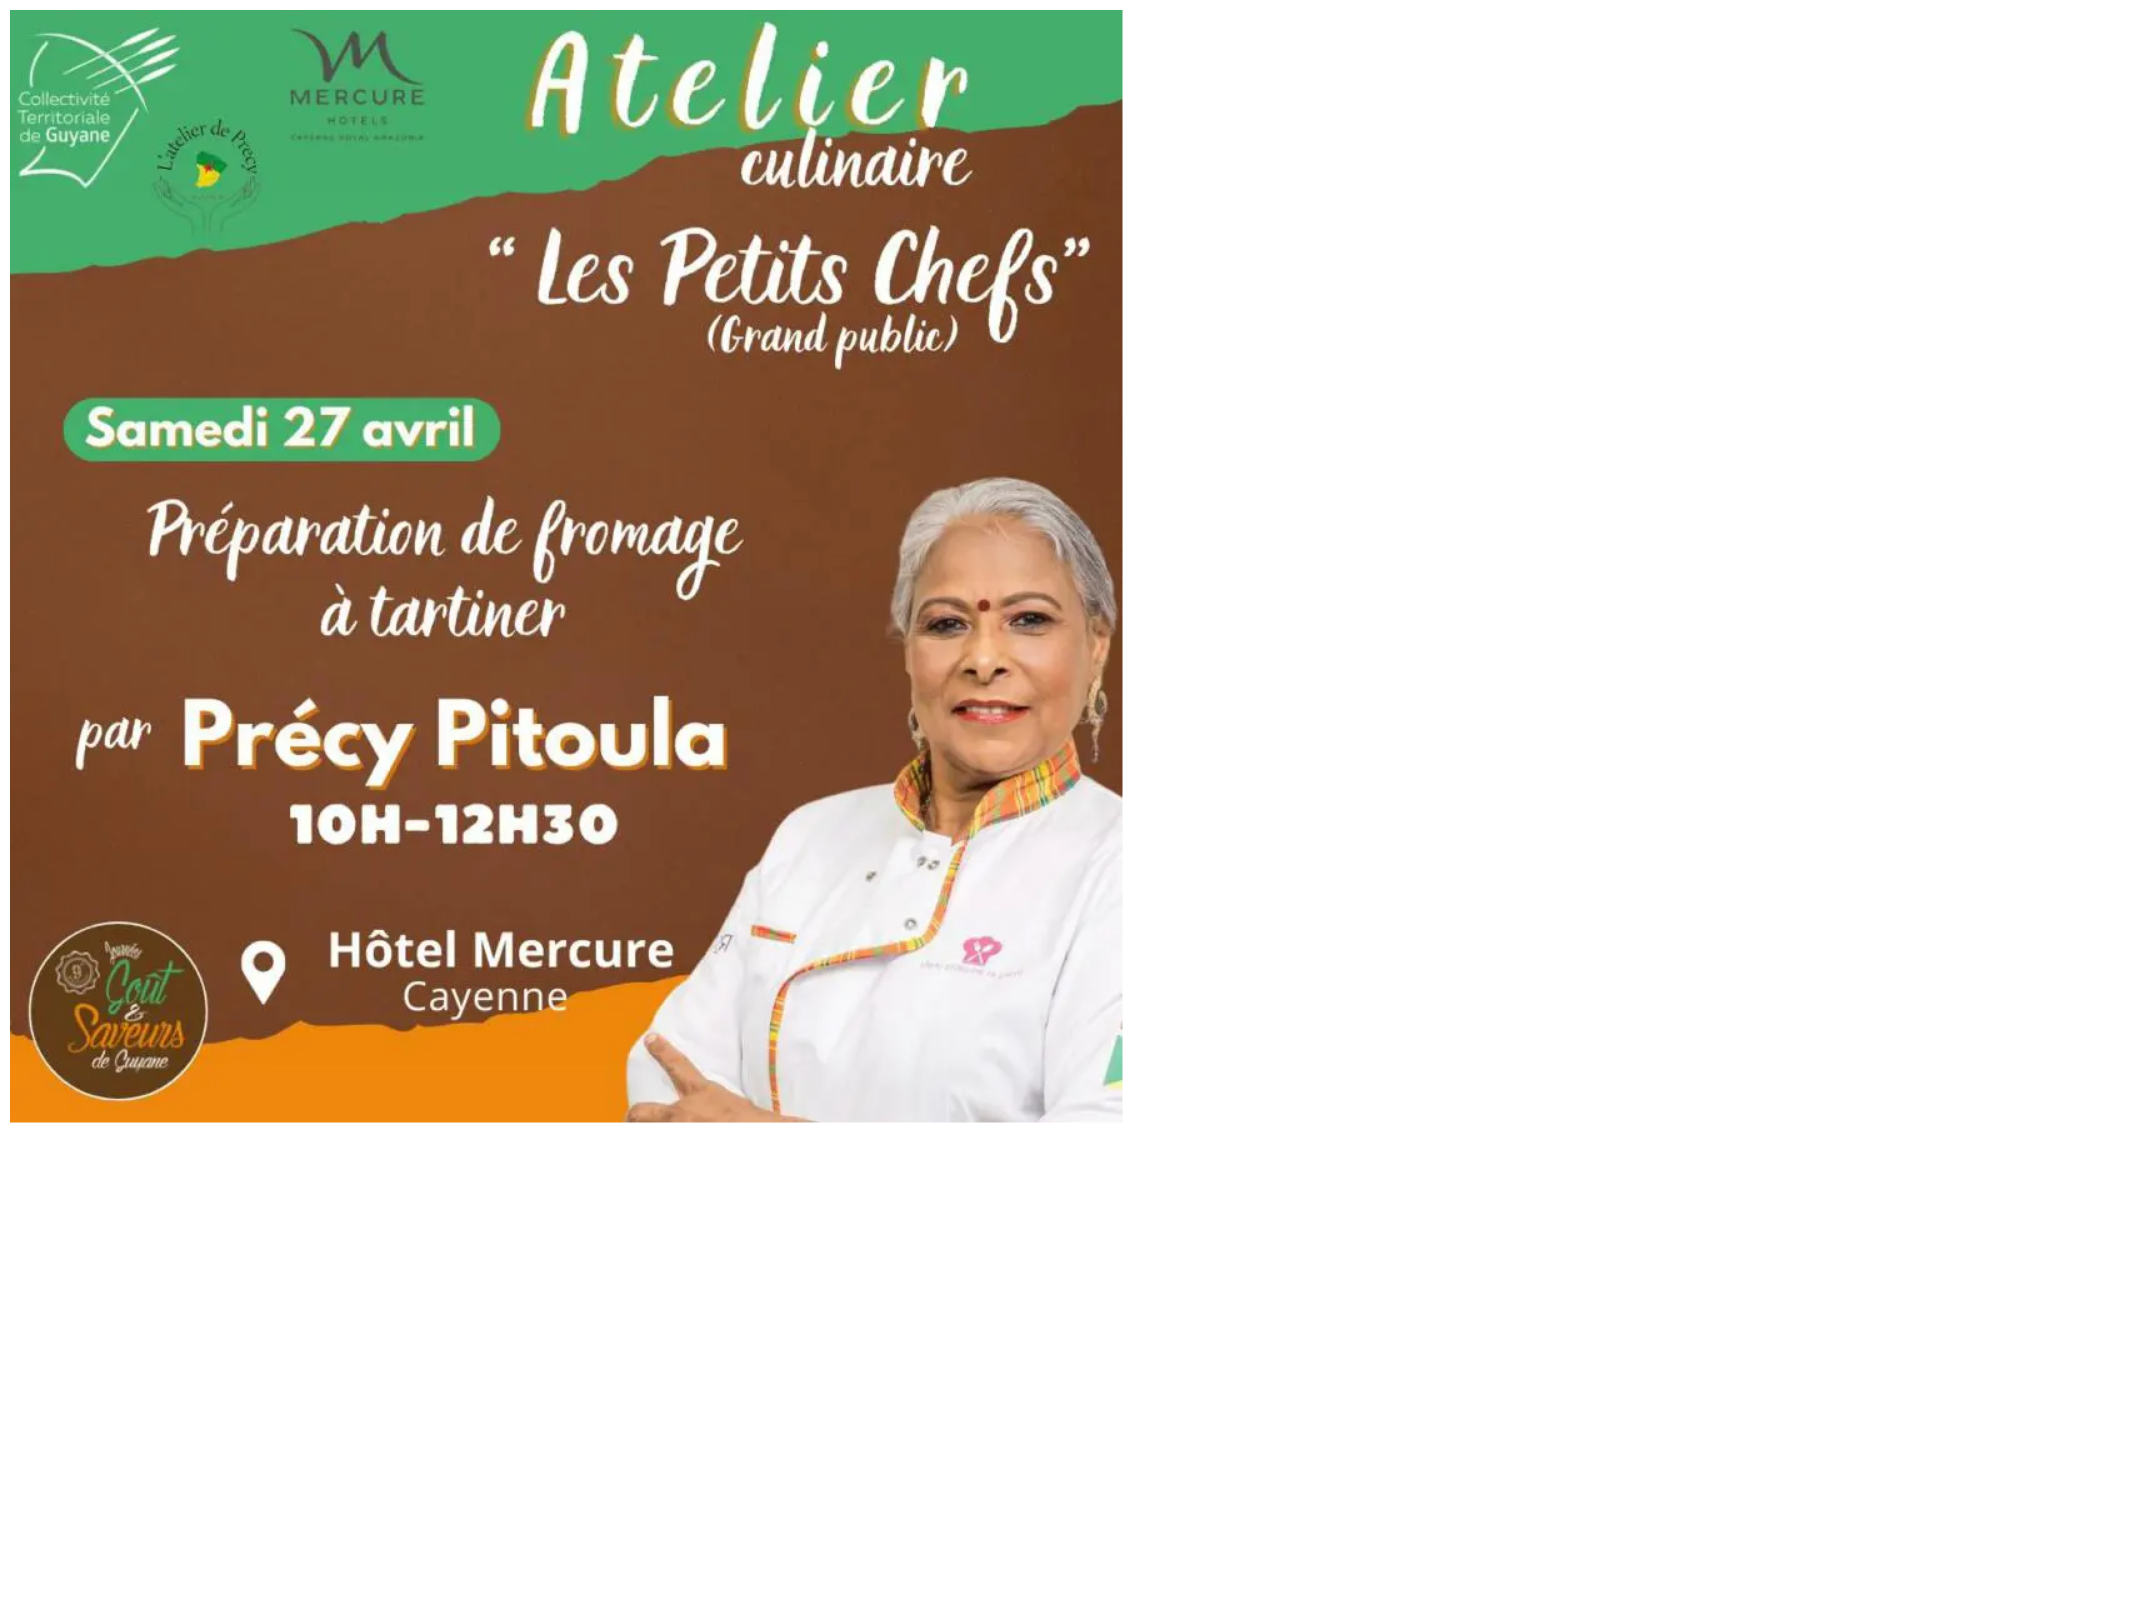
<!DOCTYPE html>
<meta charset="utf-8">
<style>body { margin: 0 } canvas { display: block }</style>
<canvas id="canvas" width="2145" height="1619"></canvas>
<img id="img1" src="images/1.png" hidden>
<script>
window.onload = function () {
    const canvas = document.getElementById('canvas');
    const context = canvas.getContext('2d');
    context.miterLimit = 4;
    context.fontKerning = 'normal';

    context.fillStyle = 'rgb(255, 255, 255)';
    context.fillRect(0, 0, 2145, 1619);
    context.drawImage(document.getElementById('img1'), 10, 10, 1113, 1113);
};
</script>
